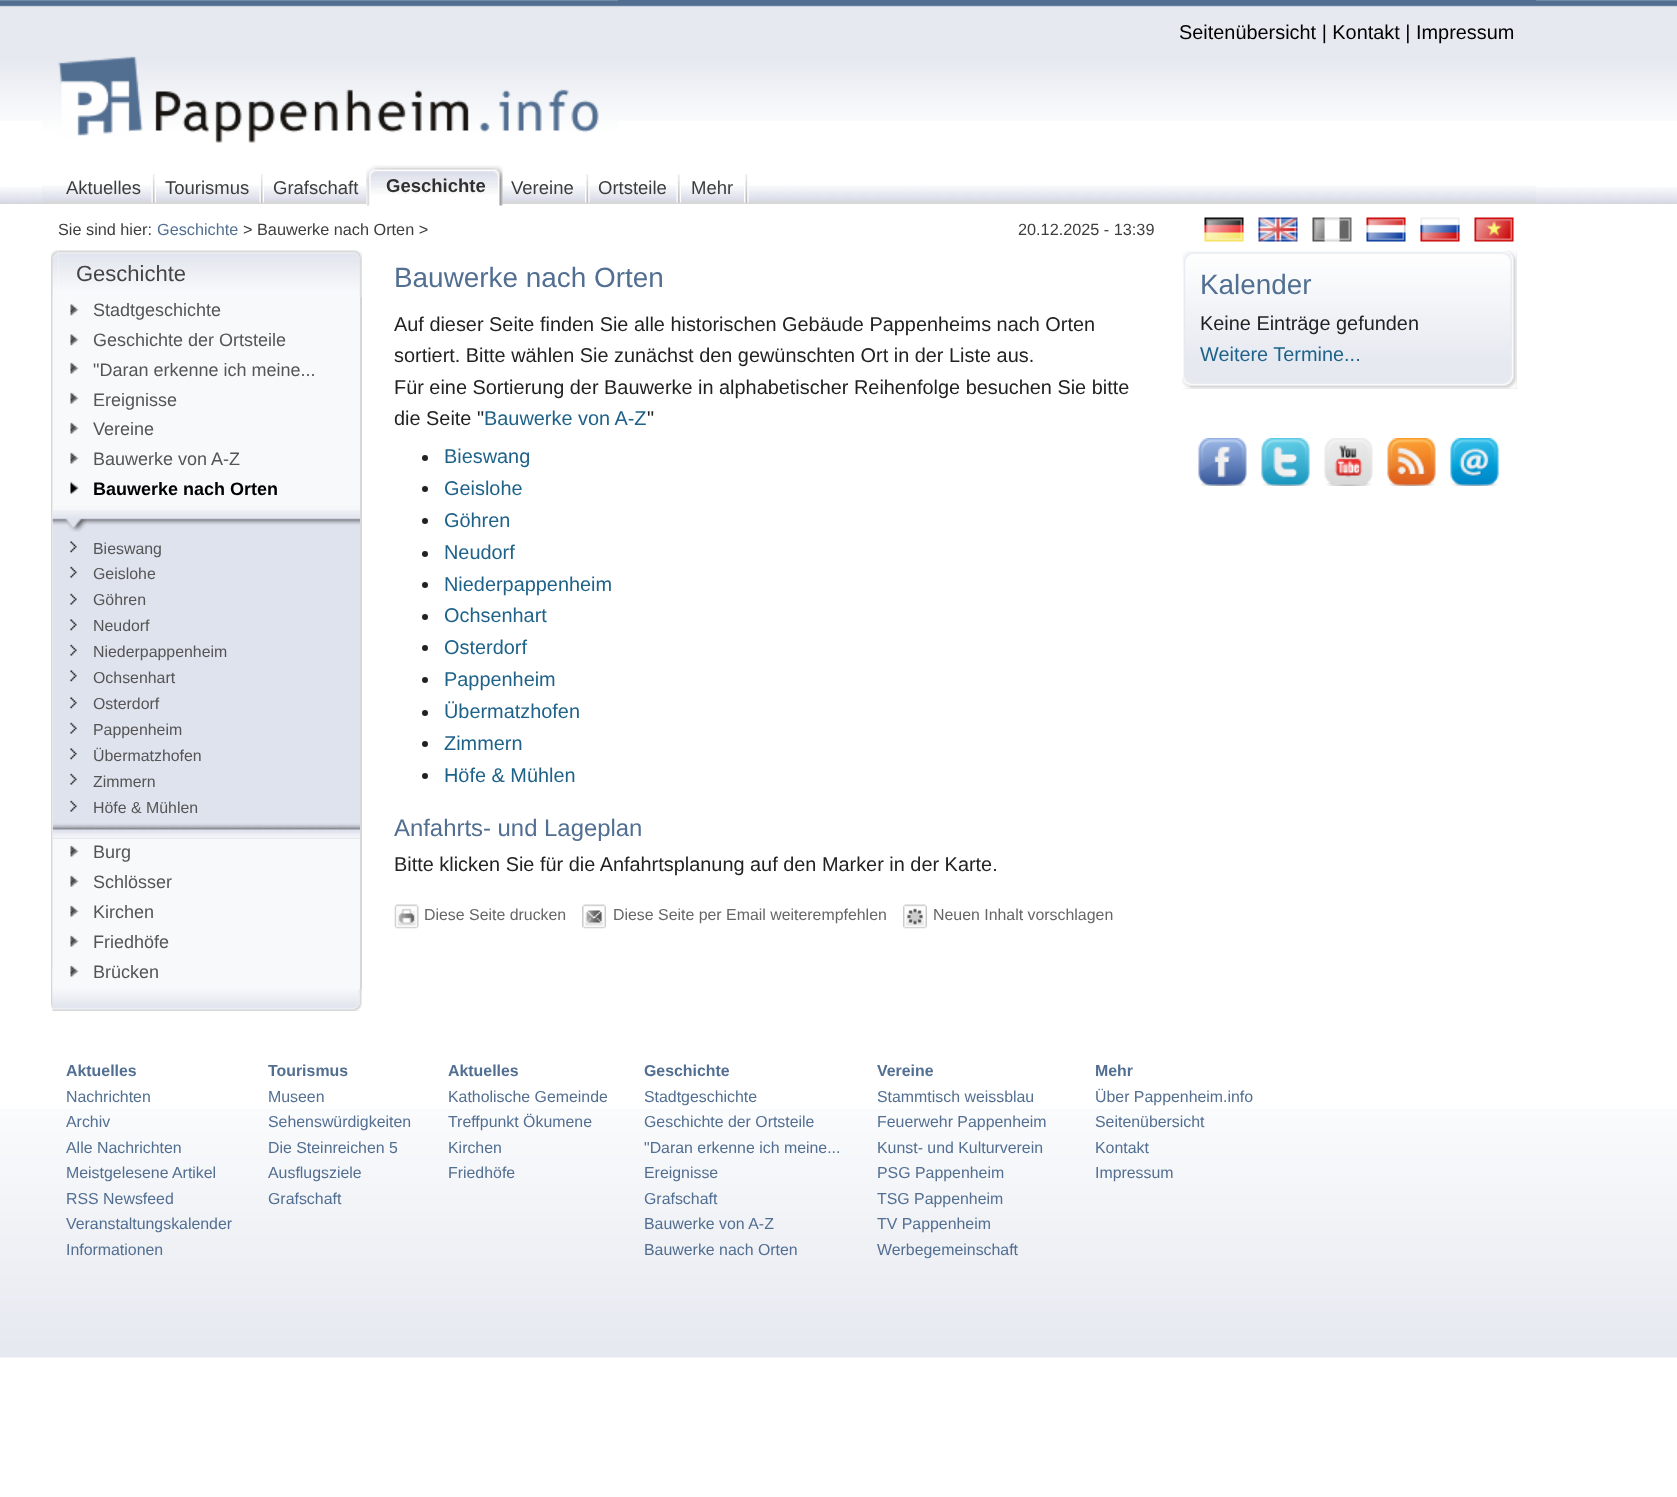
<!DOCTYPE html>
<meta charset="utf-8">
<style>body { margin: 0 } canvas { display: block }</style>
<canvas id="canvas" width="1677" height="1497"></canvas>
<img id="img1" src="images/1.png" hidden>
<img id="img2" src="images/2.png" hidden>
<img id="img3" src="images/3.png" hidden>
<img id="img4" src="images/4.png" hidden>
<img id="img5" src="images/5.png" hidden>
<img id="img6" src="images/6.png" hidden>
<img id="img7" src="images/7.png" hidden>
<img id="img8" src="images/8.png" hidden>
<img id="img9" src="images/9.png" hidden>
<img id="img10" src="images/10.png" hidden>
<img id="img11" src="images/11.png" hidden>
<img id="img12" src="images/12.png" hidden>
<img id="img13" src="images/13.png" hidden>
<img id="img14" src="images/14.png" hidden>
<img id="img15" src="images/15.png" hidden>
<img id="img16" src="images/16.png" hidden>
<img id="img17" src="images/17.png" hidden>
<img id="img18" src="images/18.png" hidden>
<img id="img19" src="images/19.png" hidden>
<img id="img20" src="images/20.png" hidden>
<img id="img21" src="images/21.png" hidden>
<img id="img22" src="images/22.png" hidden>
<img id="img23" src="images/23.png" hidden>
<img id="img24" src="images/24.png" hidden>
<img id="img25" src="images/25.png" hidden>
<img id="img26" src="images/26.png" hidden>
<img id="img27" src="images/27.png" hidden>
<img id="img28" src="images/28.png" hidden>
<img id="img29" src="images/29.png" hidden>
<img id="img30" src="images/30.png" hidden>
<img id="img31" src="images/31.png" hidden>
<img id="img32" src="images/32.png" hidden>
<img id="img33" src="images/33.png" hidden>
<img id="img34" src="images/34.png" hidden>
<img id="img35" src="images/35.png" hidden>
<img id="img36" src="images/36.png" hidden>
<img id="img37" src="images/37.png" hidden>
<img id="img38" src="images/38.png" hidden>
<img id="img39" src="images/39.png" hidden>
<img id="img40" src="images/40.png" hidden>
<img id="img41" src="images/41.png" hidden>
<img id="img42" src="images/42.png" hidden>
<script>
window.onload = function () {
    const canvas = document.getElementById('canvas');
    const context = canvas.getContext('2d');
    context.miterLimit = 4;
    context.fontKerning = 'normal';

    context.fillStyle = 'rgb(255, 255, 255)';
    context.fillRect(0, 0, 1677, 1497);
    context.drawImage(document.getElementById('img1'), 0, 0, 1677, 121);
    context.fillStyle = 'rgb(82, 111, 146)';
    context.fillRect(618, 0, 918, 1);
    context.drawImage(document.getElementById('img2'), 42, 0, 576, 143);
    context.drawImage(document.getElementById('img3'), 0, 187, 1677, 17);
    context.drawImage(document.getElementById('img4'), 42, 185, 1494, 18);
    context.drawImage(document.getElementById('img5'), 151, 174, 5, 29);
    context.drawImage(document.getElementById('img6'), 259, 174, 5, 29);
    context.drawImage(document.getElementById('img7'), 366, 165, 24, 41);
    context.drawImage(document.getElementById('img8'), 390, 165, 113, 41);
    context.drawImage(document.getElementById('img9'), 585, 174, 5, 29);
    context.drawImage(document.getElementById('img10'), 676, 174, 5, 29);
    context.drawImage(document.getElementById('img11'), 744, 174, 5, 29);
    context.drawImage(document.getElementById('img12'), 1204, 217, 40, 25);
    context.drawImage(document.getElementById('img13'), 1258, 217, 40, 25);
    context.drawImage(document.getElementById('img14'), 1312, 217, 40, 25);
    context.drawImage(document.getElementById('img15'), 1366, 217, 40, 25);
    context.drawImage(document.getElementById('img16'), 1420, 217, 40, 25);
    context.drawImage(document.getElementById('img17'), 1474, 217, 40, 25);
    context.drawImage(document.getElementById('img18'), 51, 250, 8, 47);
    context.fillStyle = 'rgb(236, 239, 242)';
    context.fillRect(361, 251, 1, 46);
    context.drawImage(document.getElementById('img19'), 58, 250, 304, 47);
    context.drawImage(document.getElementById('img20'), 51, 297, 2, 690);
    context.drawImage(document.getElementById('img21'), 51, 987, 2, 24);
    context.drawImage(document.getElementById('img22'), 52, 969, 310, 42);
    context.fillStyle = 'rgb(214, 214, 214)';
    context.fillRect(360, 297, 2, 692);
    context.fillStyle = 'rgb(248, 249, 251)';
    context.fillRect(53, 297, 307, 209);
    context.drawImage(document.getElementById('img23'), 70, 303, 9, 13);
    context.drawImage(document.getElementById('img23'), 70, 333, 9, 13);
    context.drawImage(document.getElementById('img24'), 70, 362, 9, 12);
    context.drawImage(document.getElementById('img24'), 70, 392, 9, 12);
    context.drawImage(document.getElementById('img24'), 70, 422, 9, 12);
    context.drawImage(document.getElementById('img24'), 70, 452, 9, 12);
    context.drawImage(document.getElementById('img25'), 70, 481, 9, 13);
    context.fillStyle = 'rgb(223, 227, 238)';
    context.fillRect(53, 532, 307, 289);
    context.drawImage(document.getElementById('img26'), 52, 506, 308, 26);
    context.drawImage(document.getElementById('img27'), 70, 541, 7, 12);
    context.drawImage(document.getElementById('img28'), 70, 566, 7, 12);
    context.drawImage(document.getElementById('img28'), 70, 593, 7, 12);
    context.drawImage(document.getElementById('img27'), 70, 619, 7, 12);
    context.drawImage(document.getElementById('img28'), 70, 644, 7, 12);
    context.drawImage(document.getElementById('img27'), 70, 670, 7, 12);
    context.drawImage(document.getElementById('img27'), 70, 697, 7, 12);
    context.drawImage(document.getElementById('img28'), 70, 722, 7, 12);
    context.drawImage(document.getElementById('img27'), 70, 748, 7, 12);
    context.drawImage(document.getElementById('img28'), 70, 773, 7, 12);
    context.drawImage(document.getElementById('img28'), 70, 800, 7, 12);
    context.fillStyle = 'rgb(222, 226, 231)';
    context.fillRect(53, 838, 307, 1);
    context.drawImage(document.getElementById('img29'), 52, 821, 308, 18);
    context.fillStyle = 'rgb(248, 249, 251)';
    context.fillRect(53, 839, 307, 150);
    context.drawImage(document.getElementById('img24'), 70, 845, 9, 12);
    context.drawImage(document.getElementById('img24'), 70, 875, 9, 12);
    context.drawImage(document.getElementById('img24'), 70, 905, 9, 12);
    context.drawImage(document.getElementById('img24'), 70, 935, 9, 12);
    context.drawImage(document.getElementById('img24'), 70, 965, 9, 12);
    context.fillStyle = 'rgb(34, 34, 34)';
    context.beginPath();
    context.arc(425, 458, 3, 0, 2 * Math.PI);
    context.fill();
    context.beginPath();
    context.arc(425, 489, 3, 0, 2 * Math.PI);
    context.fill();
    context.beginPath();
    context.arc(425, 521, 3, 0, 2 * Math.PI);
    context.fill();
    context.beginPath();
    context.arc(425, 554, 3, 0, 2 * Math.PI);
    context.fill();
    context.beginPath();
    context.arc(425, 585, 3, 0, 2 * Math.PI);
    context.fill();
    context.beginPath();
    context.arc(425, 617, 3, 0, 2 * Math.PI);
    context.fill();
    context.beginPath();
    context.arc(425, 648, 3, 0, 2 * Math.PI);
    context.fill();
    context.beginPath();
    context.arc(425, 680, 3, 0, 2 * Math.PI);
    context.fill();
    context.beginPath();
    context.arc(425, 713, 3, 0, 2 * Math.PI);
    context.fill();
    context.beginPath();
    context.arc(425, 744, 3, 0, 2 * Math.PI);
    context.fill();
    context.beginPath();
    context.arc(425, 776, 3, 0, 2 * Math.PI);
    context.fill();
    context.drawImage(document.getElementById('img30'), 394, 904, 25, 25);
    context.drawImage(document.getElementById('img31'), 582, 904, 24, 25);
    context.drawImage(document.getElementById('img32'), 903, 904, 24, 25);
    context.fillStyle = 'rgb(230, 233, 240)';
    context.fillRect(1182, 251, 335, 138);
    context.drawImage(document.getElementById('img33'), 1182, 250, 335, 139);
    context.drawImage(document.getElementById('img34'), 1182, 250, 9, 139);
    context.drawImage(document.getElementById('img35'), 1182, 366, 335, 23);
    context.drawImage(document.getElementById('img36'), 1182, 366, 9, 23);
    context.drawImage(document.getElementById('img37'), 1198, 438, 49, 48);
    context.drawImage(document.getElementById('img38'), 1261, 438, 49, 48);
    context.drawImage(document.getElementById('img39'), 1324, 438, 49, 48);
    context.drawImage(document.getElementById('img40'), 1387, 438, 49, 48);
    context.drawImage(document.getElementById('img41'), 1450, 438, 49, 48);
    context.drawImage(document.getElementById('img42'), 0, 1109, 1677, 249);
    context.font = '19.9px Liberation Sans';
    context.fillStyle = 'rgb(0, 0, 0)';
    context.fillText('Seitenübersicht | Kontakt | Impressum', 1179, 39);
    context.font = '18.5px Liberation Sans';
    context.fillStyle = 'rgb(61, 61, 61)';
    context.fillText('Aktuelles', 66, 194);
    context.fillText('Tourismus', 165, 194);
    context.fillText('Grafschaft', 273, 194);
    context.font = 'bold 18.5px Liberation Sans';
    context.fillStyle = 'rgb(49, 49, 49)';
    context.fillText('Geschichte', 386, 192);
    context.font = '18.5px Liberation Sans';
    context.fillStyle = 'rgb(61, 61, 61)';
    context.fillText('Vereine', 511, 194);
    context.fillText('Ortsteile', 598, 194);
    context.fillText('Mehr', 691, 194);
    context.font = '16.25px Liberation Sans';
    context.fillText('Sie sind hier:', 58, 235);
    context.fillStyle = 'rgb(82, 111, 146)';
    context.fillText('Geschichte', 157, 235);
    context.fillStyle = 'rgb(61, 61, 61)';
    context.fillText('> Bauwerke nach Orten >', 243, 235);
    context.fillText('20.12.2025 - 13:39', 1018, 235);
    context.font = '22px Liberation Sans';
    context.fillStyle = 'rgb(68, 68, 68)';
    context.fillText('Geschichte', 76, 281);
    context.font = '18px Liberation Sans';
    context.fillStyle = 'rgb(85, 85, 85)';
    context.fillText('Stadtgeschichte', 93, 316);
    context.fillText('Geschichte der Ortsteile', 93, 346);
    context.fillText('"Daran erkenne ich meine...', 93, 376);
    context.fillText('Ereignisse', 93, 406);
    context.fillText('Vereine', 93, 435);
    context.fillText('Bauwerke von A-Z', 93, 465);
    context.font = 'bold 18px Liberation Sans';
    context.fillStyle = 'rgb(0, 0, 0)';
    context.fillText('Bauwerke nach Orten', 93, 495);
    context.font = '15.9px Liberation Sans';
    context.fillStyle = 'rgb(85, 85, 85)';
    context.fillText('Bieswang', 93, 554);
    context.fillText('Geislohe', 93, 579);
    context.fillText('Göhren', 93, 605);
    context.fillText('Neudorf', 93, 631);
    context.fillText('Niederpappenheim', 93, 657);
    context.fillText('Ochsenhart', 93, 683);
    context.fillText('Osterdorf', 93, 709);
    context.fillText('Pappenheim', 93, 735);
    context.fillText('Übermatzhofen', 93, 761);
    context.fillText('Zimmern', 93, 787);
    context.fillText('Höfe & Mühlen', 93, 813);
    context.font = '18px Liberation Sans';
    context.fillText('Burg', 93, 858);
    context.fillText('Schlösser', 93, 888);
    context.fillText('Kirchen', 93, 918);
    context.fillText('Friedhöfe', 93, 948);
    context.fillText('Brücken', 93, 978);
    context.font = '27.9px Liberation Sans';
    context.fillStyle = 'rgb(82, 111, 146)';
    context.fillText('Bauwerke nach Orten', 394, 287);
    context.font = '19.9px Liberation Sans';
    context.fillStyle = 'rgb(34, 34, 34)';
    context.fillText('Auf dieser Seite finden Sie alle historischen Gebäude Pappenheims nach Orten', 394, 331);
    context.fillText('sortiert. Bitte wählen Sie zunächst den gewünschten Ort in der Liste aus.', 394, 362);
    context.fillText('Für eine Sortierung der Bauwerke in alphabetischer Reihenfolge besuchen Sie bitte', 394, 394);
    context.fillText('die Seite "', 394, 425);
    context.fillStyle = 'rgb(30, 98, 137)';
    context.fillText('Bauwerke von A-Z', 484, 425);
    context.fillStyle = 'rgb(34, 34, 34)';
    context.fillText('"', 647, 425);
    context.fillStyle = 'rgb(30, 98, 137)';
    context.fillText('Bieswang', 444, 463);
    context.fillText('Geislohe', 444, 495);
    context.fillText('Göhren', 444, 527);
    context.fillText('Neudorf', 444, 559);
    context.fillText('Niederpappenheim', 444, 591);
    context.fillText('Ochsenhart', 444, 622);
    context.fillText('Osterdorf', 444, 654);
    context.fillText('Pappenheim', 444, 686);
    context.fillText('Übermatzhofen', 444, 718);
    context.fillText('Zimmern', 444, 750);
    context.fillText('Höfe & Mühlen', 444, 782);
    context.font = '23.9px Liberation Sans';
    context.fillStyle = 'rgb(82, 111, 146)';
    context.fillText('Anfahrts- und Lageplan', 394, 836);
    context.font = '19.9px Liberation Sans';
    context.fillStyle = 'rgb(34, 34, 34)';
    context.fillText('Bitte klicken Sie für die Anfahrtsplanung auf den Marker in der Karte.', 394, 871);
    context.font = '15.9px Liberation Sans';
    context.fillStyle = 'rgb(102, 102, 102)';
    context.fillText('Diese Seite drucken', 424, 920);
    context.fillText('Diese Seite per Email weiterempfehlen', 613, 920);
    context.fillText('Neuen Inhalt vorschlagen', 933, 920);
    context.font = '27.9px Liberation Sans';
    context.fillStyle = 'rgb(82, 111, 146)';
    context.fillText('Kalender', 1200, 294);
    context.font = '19.9px Liberation Sans';
    context.fillStyle = 'rgb(34, 34, 34)';
    context.fillText('Keine Einträge gefunden', 1200, 330);
    context.fillStyle = 'rgb(30, 98, 137)';
    context.fillText('Weitere Termine...', 1200, 361);
    context.font = 'bold 15.9px Liberation Sans';
    context.fillStyle = 'rgb(82, 111, 146)';
    context.fillText('Aktuelles', 66, 1076);
    context.font = '15.9px Liberation Sans';
    context.fillText('Nachrichten', 66, 1102);
    context.fillText('Archiv', 66, 1127);
    context.fillText('Alle Nachrichten', 66, 1153);
    context.fillText('Meistgelesene Artikel', 66, 1178);
    context.fillText('RSS Newsfeed', 66, 1204);
    context.fillText('Veranstaltungskalender', 66, 1229);
    context.fillText('Informationen', 66, 1255);
    context.font = 'bold 15.9px Liberation Sans';
    context.fillText('Tourismus', 268, 1076);
    context.font = '15.9px Liberation Sans';
    context.fillText('Museen', 268, 1102);
    context.fillText('Sehenswürdigkeiten', 268, 1127);
    context.fillText('Die Steinreichen 5', 268, 1153);
    context.fillText('Ausflugsziele', 268, 1178);
    context.fillText('Grafschaft', 268, 1204);
    context.font = 'bold 15.9px Liberation Sans';
    context.fillText('Aktuelles', 448, 1076);
    context.font = '15.9px Liberation Sans';
    context.fillText('Katholische Gemeinde', 448, 1102);
    context.fillText('Treffpunkt Ökumene', 448, 1127);
    context.fillText('Kirchen', 448, 1153);
    context.fillText('Friedhöfe', 448, 1178);
    context.font = 'bold 15.9px Liberation Sans';
    context.fillText('Geschichte', 644, 1076);
    context.font = '15.9px Liberation Sans';
    context.fillText('Stadtgeschichte', 644, 1102);
    context.fillText('Geschichte der Ortsteile', 644, 1127);
    context.fillText('"Daran erkenne ich meine...', 644, 1153);
    context.fillText('Ereignisse', 644, 1178);
    context.fillText('Grafschaft', 644, 1204);
    context.fillText('Bauwerke von A-Z', 644, 1229);
    context.fillText('Bauwerke nach Orten', 644, 1255);
    context.font = 'bold 15.9px Liberation Sans';
    context.fillText('Vereine', 877, 1076);
    context.font = '15.9px Liberation Sans';
    context.fillText('Stammtisch weissblau', 877, 1102);
    context.fillText('Feuerwehr Pappenheim', 877, 1127);
    context.fillText('Kunst- und Kulturverein', 877, 1153);
    context.fillText('PSG Pappenheim', 877, 1178);
    context.fillText('TSG Pappenheim', 877, 1204);
    context.fillText('TV Pappenheim', 877, 1229);
    context.fillText('Werbegemeinschaft', 877, 1255);
    context.font = 'bold 15.9px Liberation Sans';
    context.fillText('Mehr', 1095, 1076);
    context.font = '15.9px Liberation Sans';
    context.fillText('Über Pappenheim.info', 1095, 1102);
    context.fillText('Seitenübersicht', 1095, 1127);
    context.fillText('Kontakt', 1095, 1153);
    context.fillText('Impressum', 1095, 1178);
};
</script>
